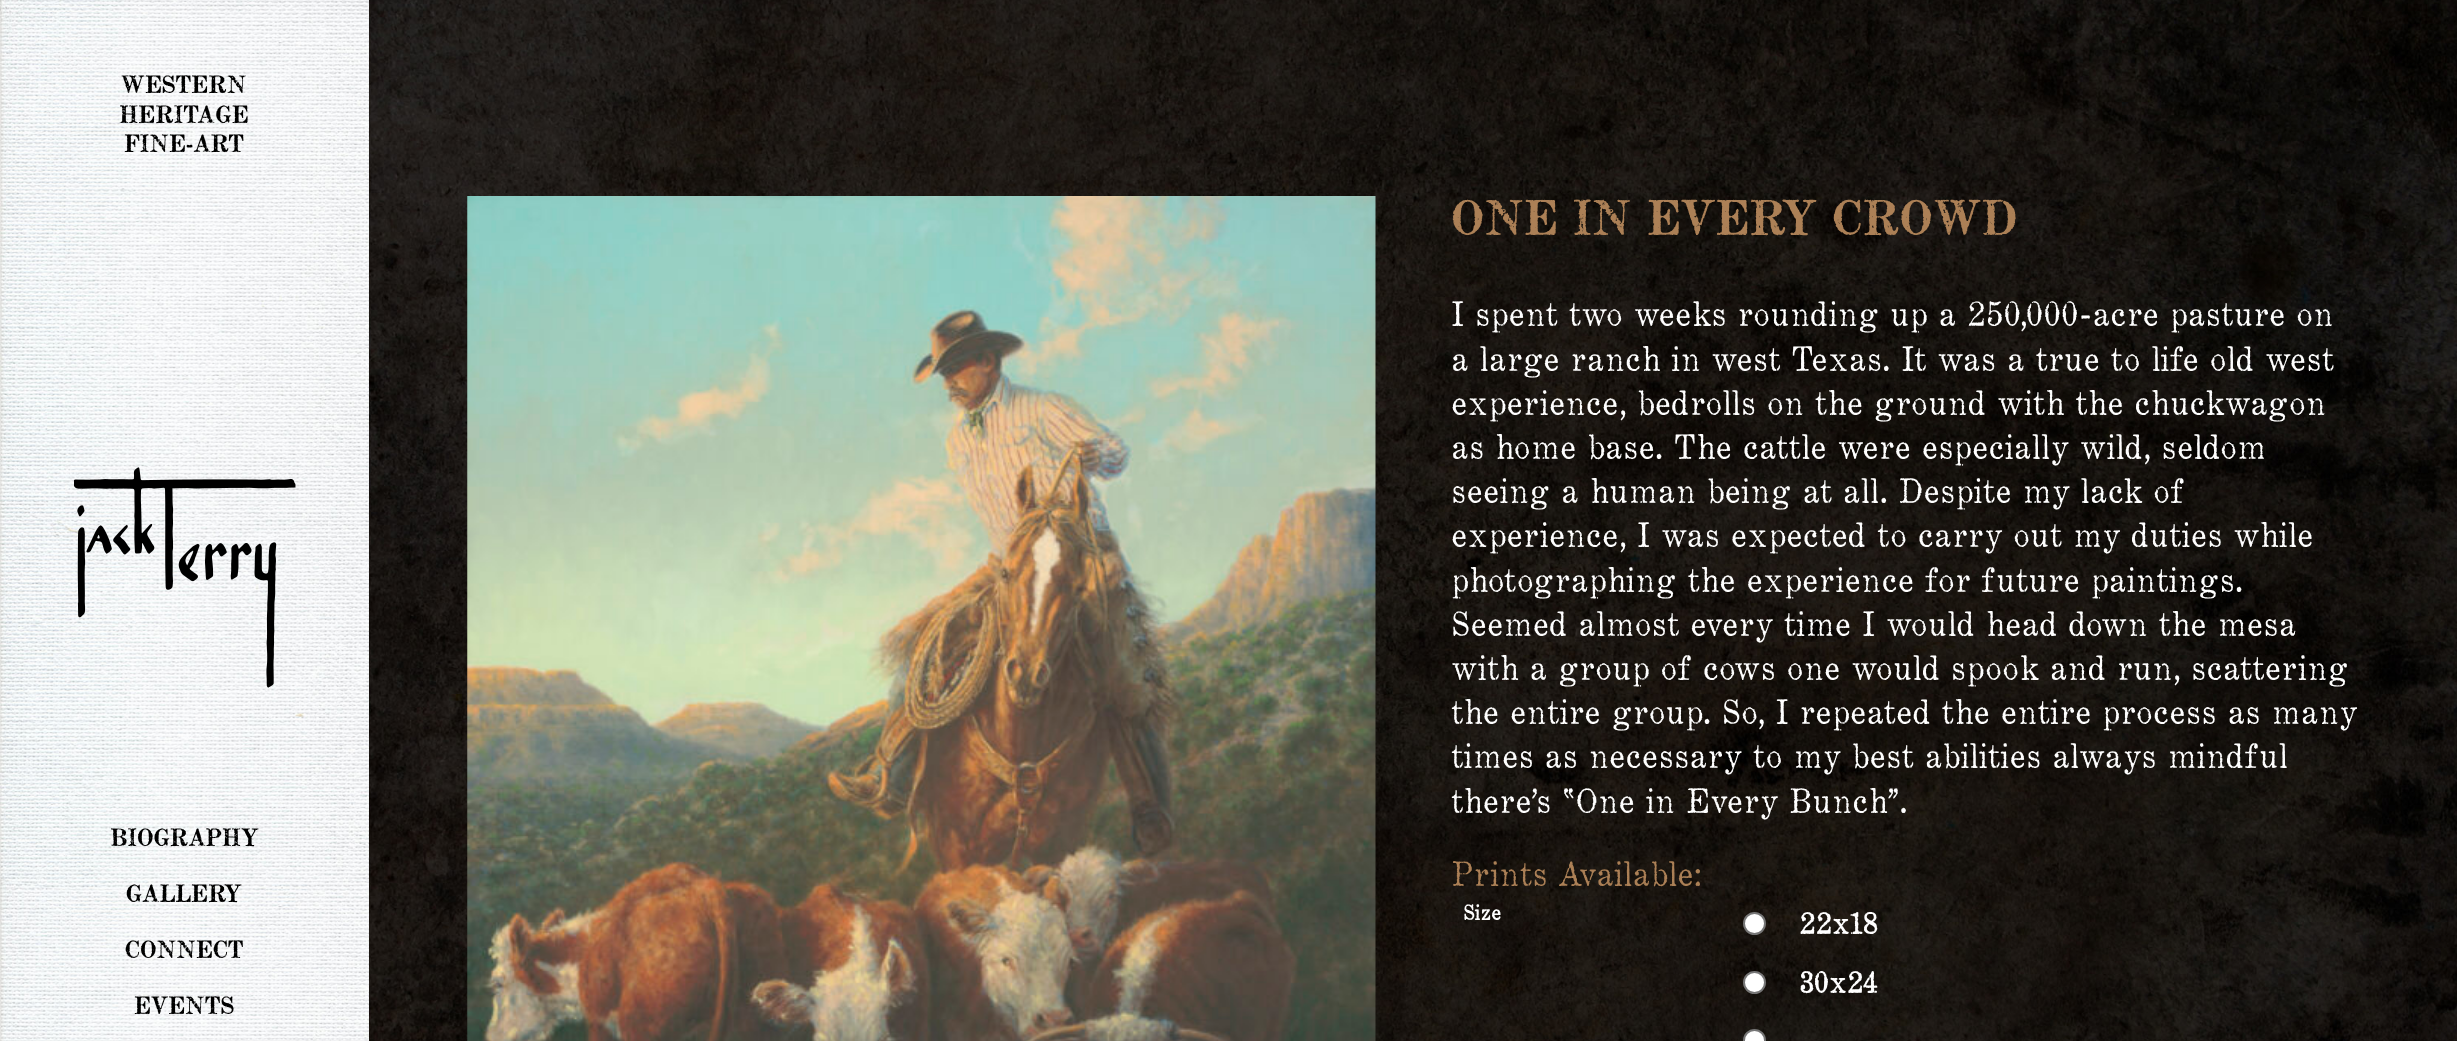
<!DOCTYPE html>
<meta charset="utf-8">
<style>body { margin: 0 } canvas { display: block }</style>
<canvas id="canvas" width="2457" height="1041"></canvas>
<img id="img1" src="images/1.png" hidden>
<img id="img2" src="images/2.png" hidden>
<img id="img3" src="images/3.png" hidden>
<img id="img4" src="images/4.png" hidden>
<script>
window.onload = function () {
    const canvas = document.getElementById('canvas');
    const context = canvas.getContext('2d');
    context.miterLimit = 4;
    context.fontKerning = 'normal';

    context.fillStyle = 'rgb(255, 255, 255)';
    context.fillRect(0, 0, 2457, 1041);
    context.drawImage(document.getElementById('img1'), 0, 0, 2457, 1041);
    context.drawImage(document.getElementById('img2'), 0, 0, 369, 1041);
    context.drawImage(document.getElementById('img3'), 74, 467, 222, 221);
    context.drawImage(document.getElementById('img4'), 467, 196, 909, 845);
    context.beginPath();
    context.arc(1754.5, 923.5, 10.5, 0, 2 * Math.PI);
    context.fill();
    context.strokeStyle = 'rgb(118, 118, 118)';
    context.lineWidth = 2;
    context.stroke();
    context.beginPath();
    context.arc(1754.5, 982.5, 10.5, 0, 2 * Math.PI);
    context.fill();
    context.stroke();
    context.beginPath();
    context.arc(1754.5, 1040.5, 10.5, 0, 2 * Math.PI);
    context.fill();
    context.stroke();
    context.font = 'bold 24.5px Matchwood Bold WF';
    context.fillStyle = 'rgb(0, 0, 0)';
    context.fillText('WESTERN', 121, 93);
    context.fillText('HERITAGE', 119, 123);
    context.fillText('FINE-ART', 124, 152);
    context.fillText('BIOGRAPHY', 110, 846);
    context.fillText('GALLERY', 126, 902);
    context.fillText('CONNECT', 125, 958);
    context.fillText('EVENTS', 134, 1014);
    context.font = 'bold 49.1px Matchwood Bold WF';
    context.fillStyle = 'rgb(172, 128, 86)';
    context.fillText('ONE IN EVERY CROWD', 1451, 235);
    context.font = '34.4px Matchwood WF';
    context.fillStyle = 'rgb(255, 255, 255)';
    context.fillText('I spent two weeks rounding up a 250,000-acre pasture on', 1451, 326);
    context.fillText('a large ranch in west Texas. It was a true to life old west', 1451, 371);
    context.fillText('experience, bedrolls on the ground with the chuckwagon', 1451, 415);
    context.fillText('as home base. The cattle were especially wild, seldom', 1451, 459);
    context.fillText('seeing a human being at all.', 1451, 503);
    context.fillText('Despite my lack of', 1898, 503);
    context.fillText('experience, I was expected to carry out my duties while', 1451, 547);
    context.fillText('photographing the experience for future paintings.', 1451, 592);
    context.fillText('Seemed almost every time I would head down the mesa', 1451, 636);
    context.fillText('with a group of cows one would spook and run, scattering', 1451, 680);
    context.fillText('the entire group. So, I repeated the entire process as many', 1451, 724);
    context.fillText('times as necessary to my best abilities always mindful', 1451, 768);
    context.fillText('there’s “One in Every Bunch”.', 1451, 813);
    context.fillStyle = 'rgb(172, 128, 86)';
    context.fillText('Prints Available:', 1451, 886);
    context.font = 'bold 21px Matchwood WF';
    context.fillStyle = 'rgb(255, 255, 255)';
    context.fillText('Size', 1463, 920);
    context.font = 'bold 29.5px Matchwood WF';
    context.fillText('22x18', 1799, 934);
    context.fillText('30x24', 1799, 993);
};
</script>
